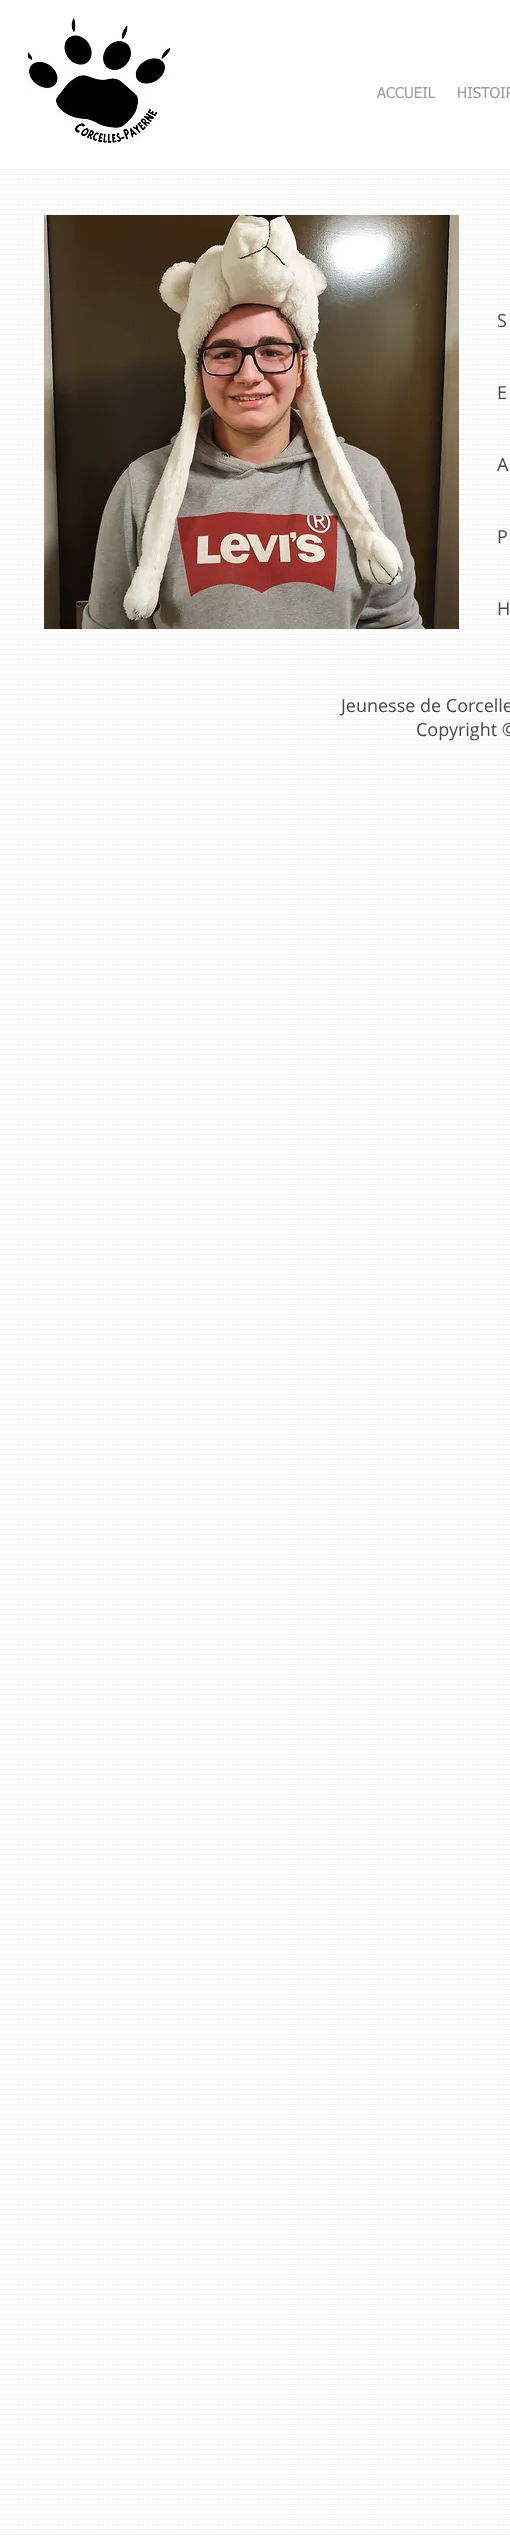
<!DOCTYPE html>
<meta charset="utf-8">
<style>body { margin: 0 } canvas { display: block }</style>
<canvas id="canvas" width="510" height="2539"></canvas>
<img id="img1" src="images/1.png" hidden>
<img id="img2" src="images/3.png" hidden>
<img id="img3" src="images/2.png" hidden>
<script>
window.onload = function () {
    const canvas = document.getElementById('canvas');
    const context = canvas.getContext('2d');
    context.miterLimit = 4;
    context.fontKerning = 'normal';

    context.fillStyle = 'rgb(255, 255, 255)';
    context.fillRect(0, 0, 510, 2539);
    context.drawImage(document.getElementById('img1'), 28, 18, 142, 125);
    context.drawImage(document.getElementById('img2'), 0, 169, 510, 2366);
    context.drawImage(document.getElementById('img3'), 44, 215, 415, 414);
    context.font = '15px tahoma';
    context.fillStyle = 'rgb(156, 156, 156)';
    context.fillText('ACCUEIL', 377, 98);
    context.fillText('HISTOIR', 457, 98);
    context.font = '18px Open Sans';
    context.fillStyle = 'rgb(72, 72, 72)';
    context.fillText('S', 497, 327);
    context.fillText('E', 497, 399);
    context.fillText('A', 497, 471);
    context.fillText('P', 497, 543);
    context.fillText('H', 497, 615);
    context.fillText('Jeunesse de Corcelle', 341, 712);
    context.fillText('Copyright ©', 416, 736);
};
</script>
